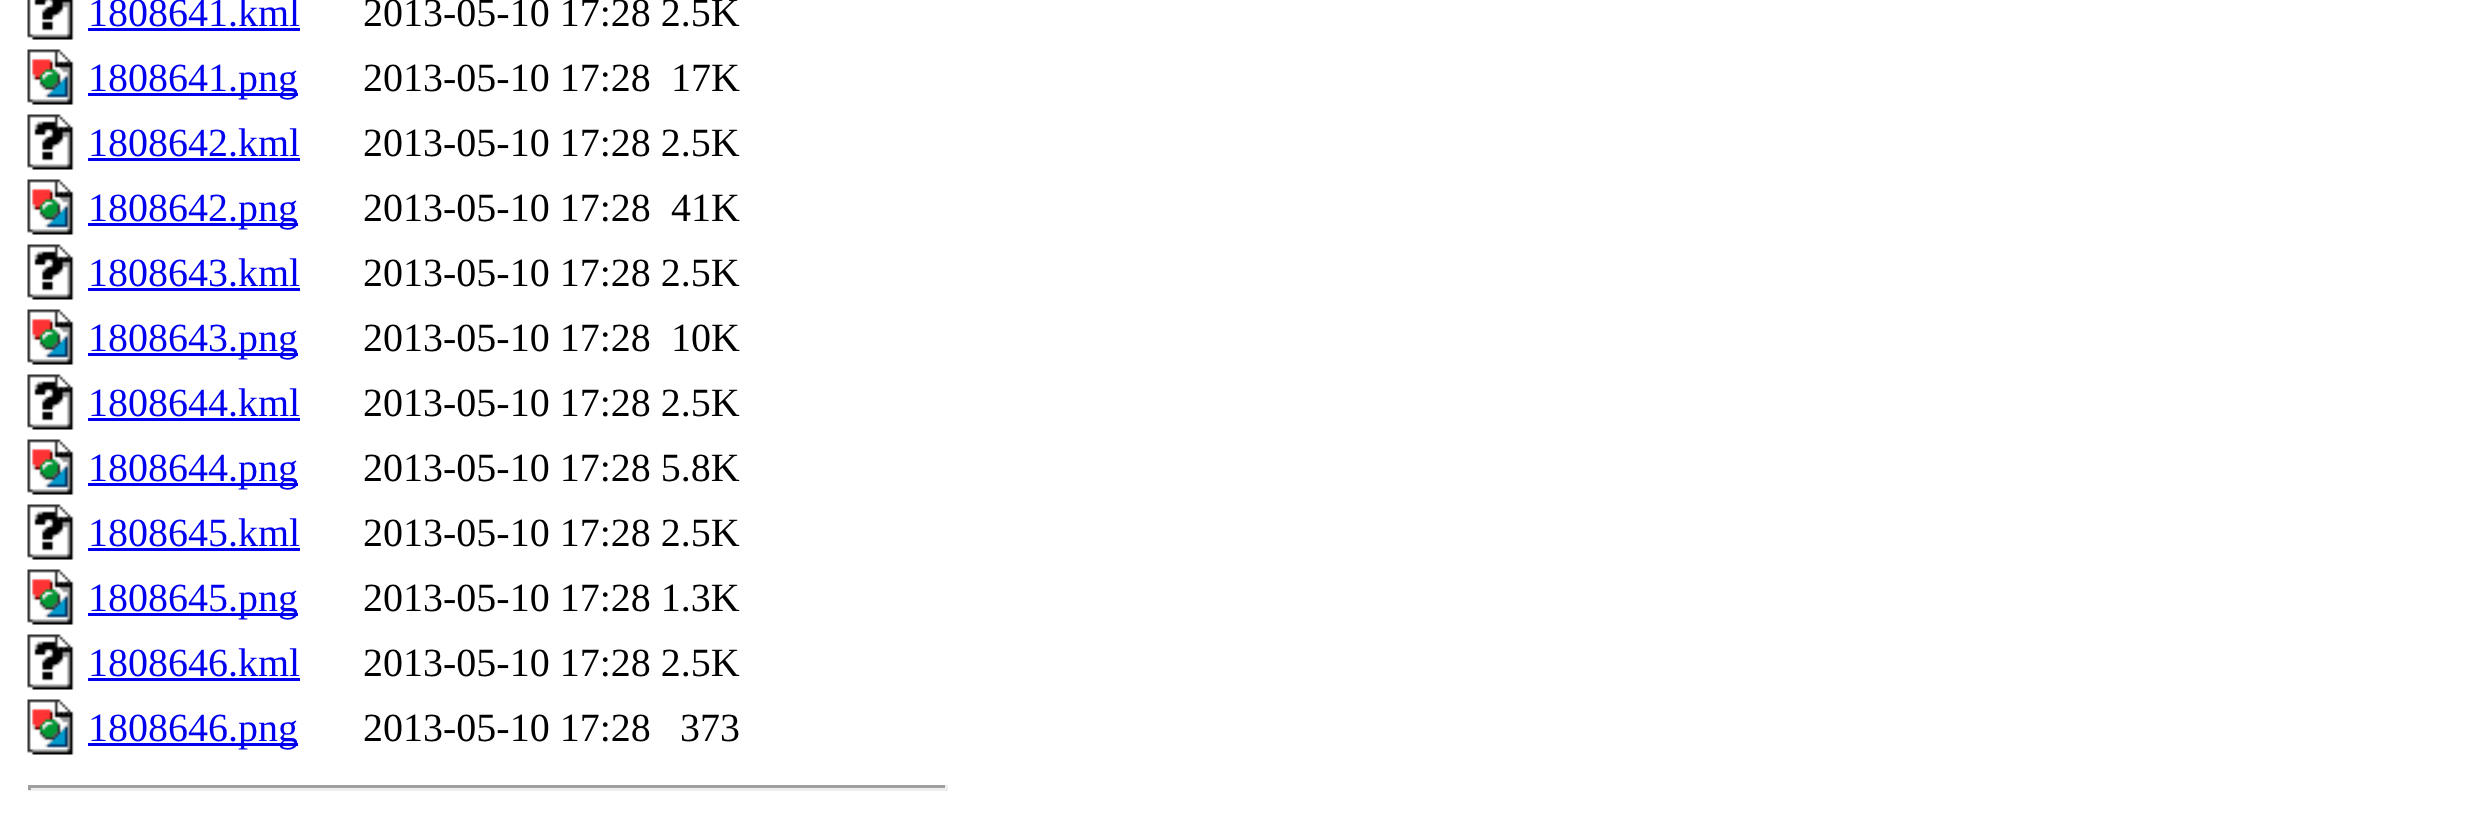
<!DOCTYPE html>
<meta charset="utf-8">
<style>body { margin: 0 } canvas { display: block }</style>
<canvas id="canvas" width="2490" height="836"></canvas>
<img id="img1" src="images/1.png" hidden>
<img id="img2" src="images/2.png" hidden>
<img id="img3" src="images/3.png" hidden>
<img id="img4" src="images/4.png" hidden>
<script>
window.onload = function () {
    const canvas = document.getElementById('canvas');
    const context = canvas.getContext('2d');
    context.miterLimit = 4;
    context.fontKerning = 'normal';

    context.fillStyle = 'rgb(255, 255, 255)';
    context.fillRect(0, 0, 2490, 836);
    context.drawImage(document.getElementById('img1'), 27, 0, 47, 40);
    context.fillStyle = 'rgb(0, 0, 238)';
    context.fillRect(88, 28, 212, 3);
    context.drawImage(document.getElementById('img2'), 27, 49, 47, 56);
    context.fillRect(88, 93, 210, 3);
    context.drawImage(document.getElementById('img3'), 27, 114, 47, 56);
    context.fillRect(88, 158, 212, 3);
    context.drawImage(document.getElementById('img2'), 27, 179, 47, 56);
    context.fillRect(88, 223, 210, 3);
    context.drawImage(document.getElementById('img3'), 27, 244, 47, 56);
    context.fillRect(88, 288, 212, 3);
    context.drawImage(document.getElementById('img2'), 27, 309, 47, 56);
    context.fillRect(88, 353, 210, 3);
    context.drawImage(document.getElementById('img4'), 27, 374, 47, 56);
    context.fillRect(88, 418, 212, 3);
    context.drawImage(document.getElementById('img2'), 27, 439, 47, 56);
    context.fillRect(88, 483, 210, 3);
    context.drawImage(document.getElementById('img3'), 27, 504, 47, 56);
    context.fillRect(88, 548, 212, 3);
    context.drawImage(document.getElementById('img2'), 27, 569, 47, 56);
    context.fillRect(88, 613, 210, 3);
    context.drawImage(document.getElementById('img3'), 27, 634, 47, 56);
    context.fillRect(88, 678, 212, 3);
    context.drawImage(document.getElementById('img2'), 27, 699, 47, 56);
    context.fillRect(88, 743, 210, 3);
    context.fillStyle = 'rgb(159, 159, 159)';
    context.fillRect(28, 785, 920, 3);
    context.fillStyle = 'rgb(238, 238, 238)';
    context.fillRect(945, 785, 3, 5);
    context.fillRect(28, 788, 920, 3);
    context.fillStyle = 'rgb(159, 159, 159)';
    context.fillRect(28, 785, 3, 5);
    context.font = '40px Liberation Serif';
    context.fillStyle = 'rgb(0, 0, 238)';
    context.fillText('1808641.kml', 88, 26);
    context.fillStyle = 'rgb(0, 0, 0)';
    context.fillText('2013-05-10 17:28 2.5K', 363, 26);
    context.fillStyle = 'rgb(0, 0, 238)';
    context.fillText('1808641.png', 88, 91);
    context.fillStyle = 'rgb(0, 0, 0)';
    context.fillText('2013-05-10 17:28', 363, 91);
    context.fillText('17K', 671, 91);
    context.fillStyle = 'rgb(0, 0, 238)';
    context.fillText('1808642.kml', 88, 156);
    context.fillStyle = 'rgb(0, 0, 0)';
    context.fillText('2013-05-10 17:28 2.5K', 363, 156);
    context.fillStyle = 'rgb(0, 0, 238)';
    context.fillText('1808642.png', 88, 221);
    context.fillStyle = 'rgb(0, 0, 0)';
    context.fillText('2013-05-10 17:28', 363, 221);
    context.fillText('41K', 671, 221);
    context.fillStyle = 'rgb(0, 0, 238)';
    context.fillText('1808643.kml', 88, 286);
    context.fillStyle = 'rgb(0, 0, 0)';
    context.fillText('2013-05-10 17:28 2.5K', 363, 286);
    context.fillStyle = 'rgb(0, 0, 238)';
    context.fillText('1808643.png', 88, 351);
    context.fillStyle = 'rgb(0, 0, 0)';
    context.fillText('2013-05-10 17:28', 363, 351);
    context.fillText('10K', 671, 351);
    context.fillStyle = 'rgb(0, 0, 238)';
    context.fillText('1808644.kml', 88, 416);
    context.fillStyle = 'rgb(0, 0, 0)';
    context.fillText('2013-05-10 17:28 2.5K', 363, 416);
    context.fillStyle = 'rgb(0, 0, 238)';
    context.fillText('1808644.png', 88, 481);
    context.fillStyle = 'rgb(0, 0, 0)';
    context.fillText('2013-05-10 17:28 5.8K', 363, 481);
    context.fillStyle = 'rgb(0, 0, 238)';
    context.fillText('1808645.kml', 88, 546);
    context.fillStyle = 'rgb(0, 0, 0)';
    context.fillText('2013-05-10 17:28 2.5K', 363, 546);
    context.fillStyle = 'rgb(0, 0, 238)';
    context.fillText('1808645.png', 88, 611);
    context.fillStyle = 'rgb(0, 0, 0)';
    context.fillText('2013-05-10 17:28 1.3K', 363, 611);
    context.fillStyle = 'rgb(0, 0, 238)';
    context.fillText('1808646.kml', 88, 676);
    context.fillStyle = 'rgb(0, 0, 0)';
    context.fillText('2013-05-10 17:28 2.5K', 363, 676);
    context.fillStyle = 'rgb(0, 0, 238)';
    context.fillText('1808646.png', 88, 741);
    context.fillStyle = 'rgb(0, 0, 0)';
    context.fillText('2013-05-10 17:28', 363, 741);
    context.fillText('373', 680, 741);
};
</script>
